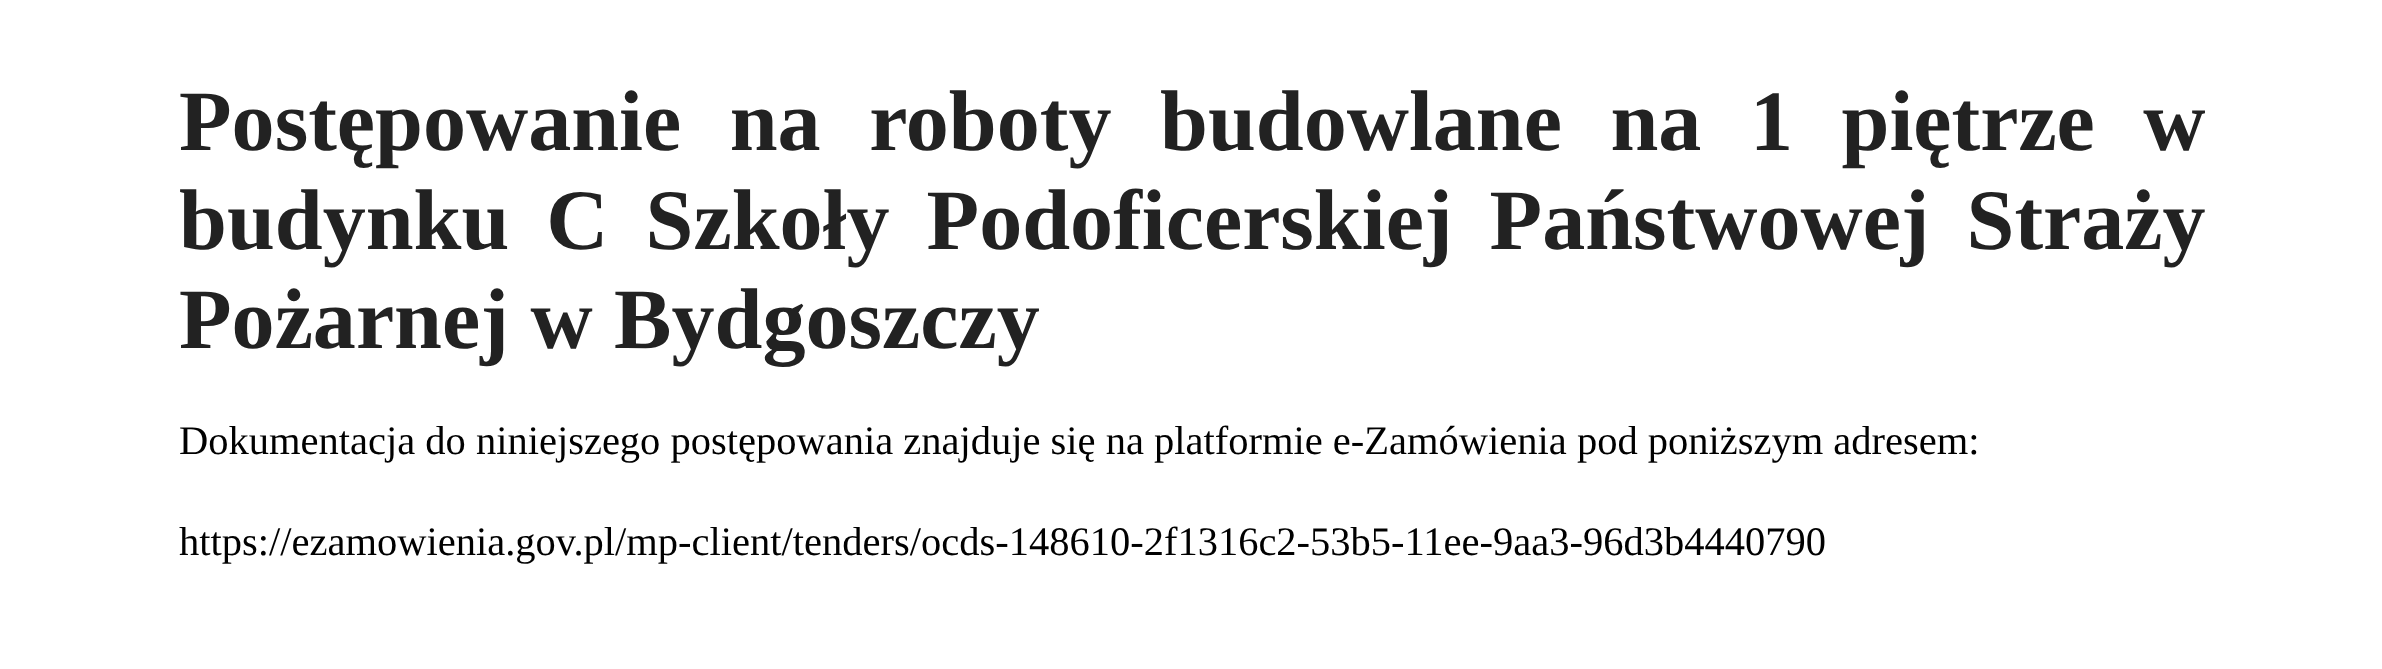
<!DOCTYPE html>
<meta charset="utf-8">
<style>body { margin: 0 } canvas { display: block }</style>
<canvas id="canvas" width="2382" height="669"></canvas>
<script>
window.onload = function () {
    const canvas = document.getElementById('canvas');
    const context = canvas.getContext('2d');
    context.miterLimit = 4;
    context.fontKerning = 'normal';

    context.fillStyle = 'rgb(255, 255, 255)';
    context.fillRect(0, 0, 2382, 669);
    context.wordSpacing = '27px';
    context.font = 'bold 86.1px Liberation Serif';
    context.fillStyle = 'rgb(34, 34, 34)';
    context.fillText('Postępowanie na roboty budowlane na 1 piętrze w', 179, 150);
    context.wordSpacing = '15.5px';
    context.fillText('budynku C Szkoły Podoficerskiej Państwowej Straży', 179, 249);
    context.wordSpacing = '0px';
    context.fillText('Pożarnej w Bydgoszczy', 179, 348);
    context.font = '40.5px Liberation Serif';
    context.fillStyle = 'rgb(0, 0, 0)';
    context.fillText('Dokumentacja do niniejszego postępowania znajduje się na platformie e-Zamówienia pod poniższym adresem:', 179, 454);
    context.fillText('https://ezamowienia.gov.pl/mp-client/tenders/ocds-148610-2f1316c2-53b5-11ee-9aa3-96d3b4440790', 179, 555);
};
</script>
